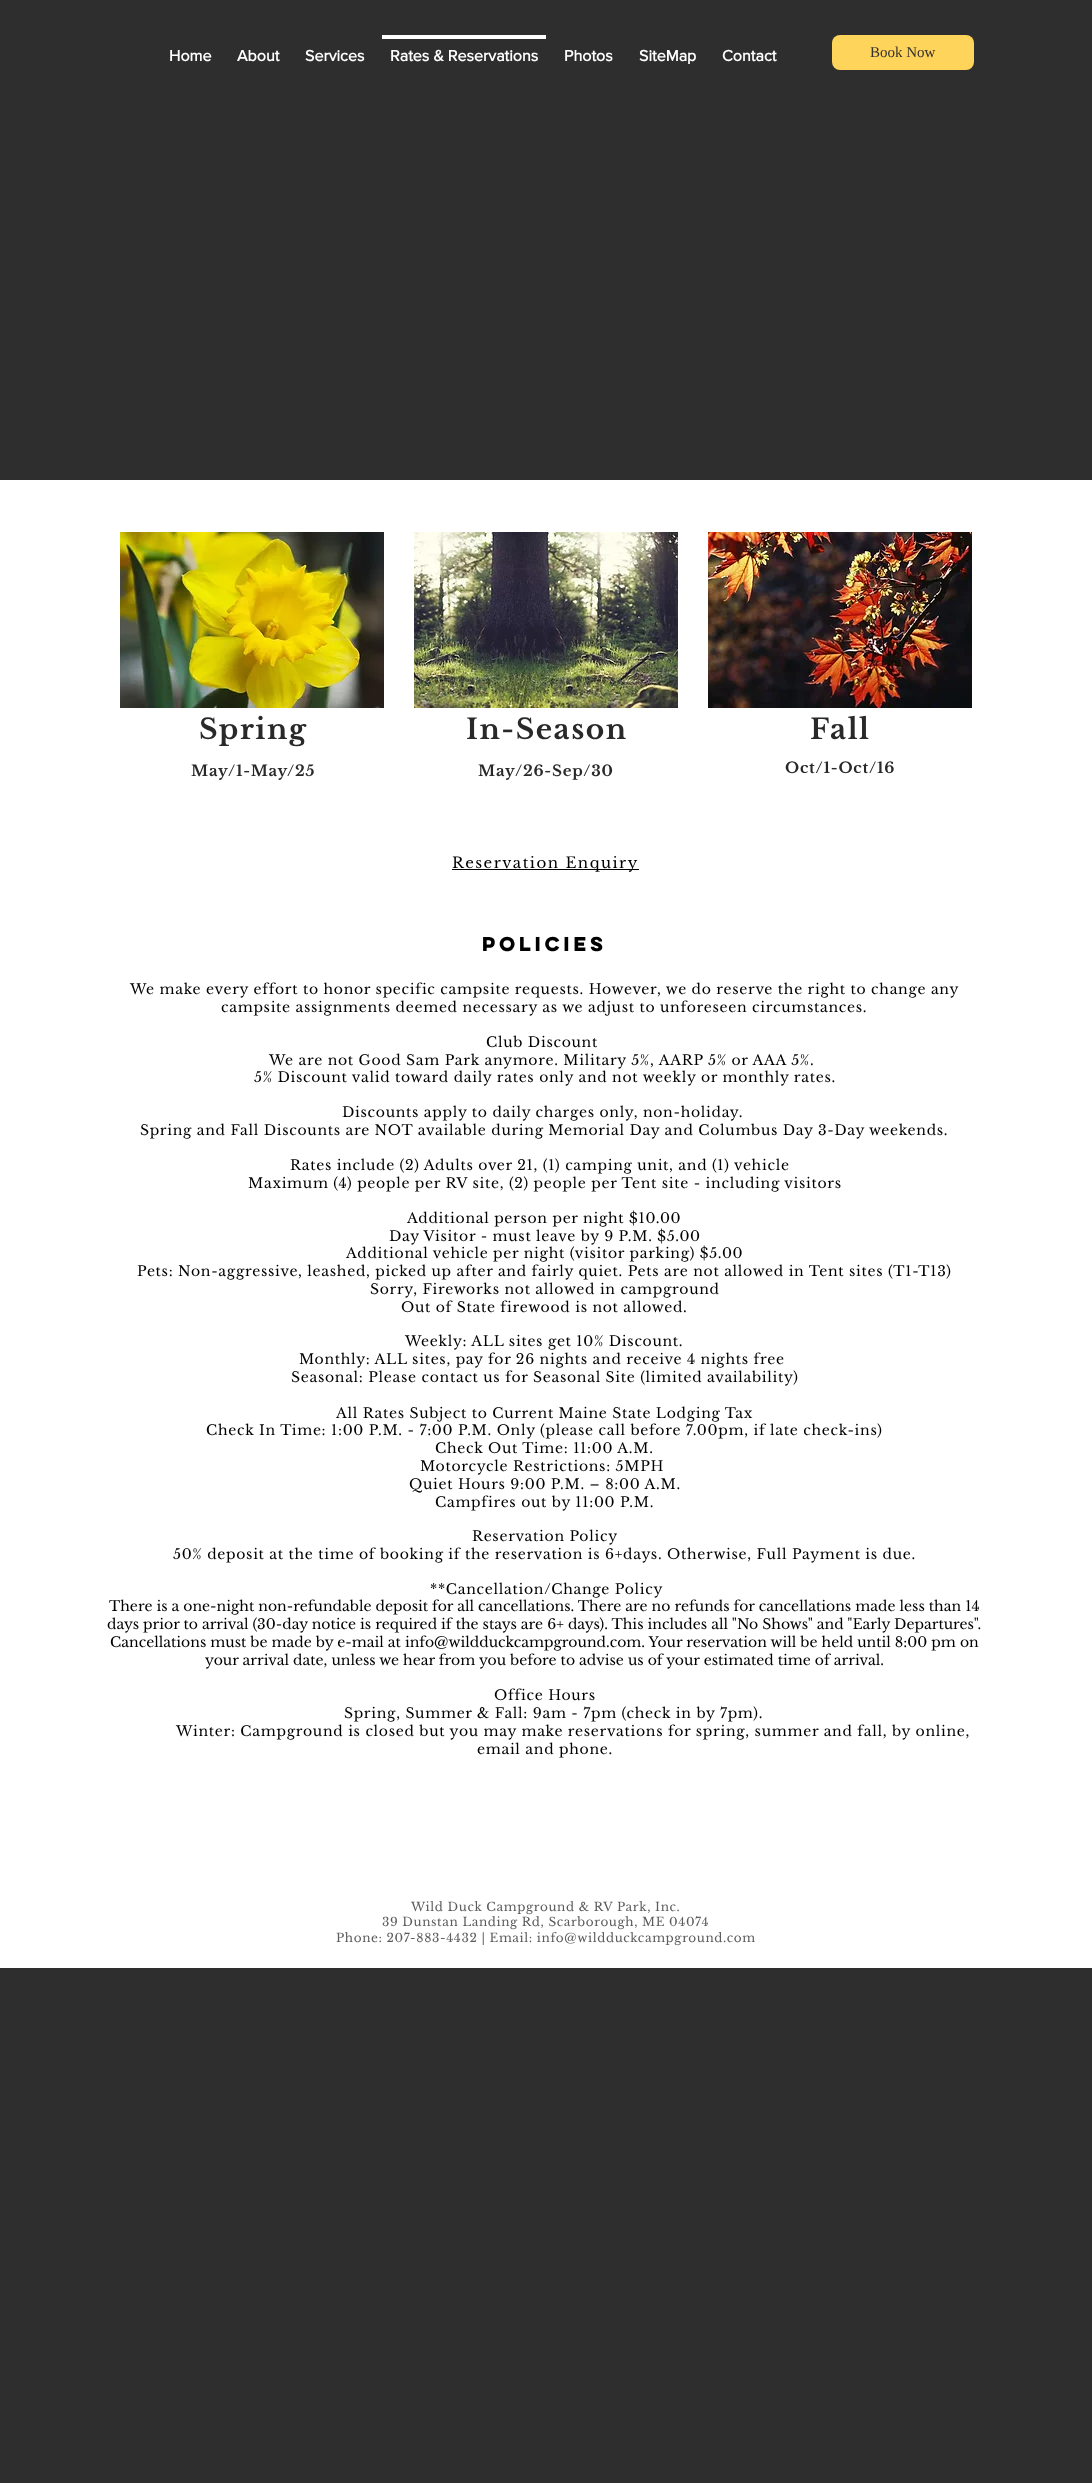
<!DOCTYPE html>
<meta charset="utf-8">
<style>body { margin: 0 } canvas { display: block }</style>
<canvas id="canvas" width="1092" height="2483"></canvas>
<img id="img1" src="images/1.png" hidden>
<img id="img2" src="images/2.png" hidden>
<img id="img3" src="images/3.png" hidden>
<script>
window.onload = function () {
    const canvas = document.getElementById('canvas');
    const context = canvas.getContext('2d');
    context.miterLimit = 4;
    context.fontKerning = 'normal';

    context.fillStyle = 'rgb(46, 46, 46)';
    context.fillRect(0, 0, 1092, 2483);
    context.fillStyle = 'rgb(255, 255, 255)';
    context.fillRect(382, 35, 164, 4);
    context.fillStyle = 'rgb(255, 212, 90)';
    context.beginPath();
    context.roundRect(832, 35, 142, 35, 8);
    context.fill();
    context.fillStyle = 'rgb(255, 255, 255)';
    context.fillRect(0, 480, 1092, 1488);
    context.drawImage(document.getElementById('img1'), 120, 532, 264, 176);
    context.drawImage(document.getElementById('img2'), 414, 532, 264, 176);
    context.drawImage(document.getElementById('img3'), 708, 532, 264, 176);
    context.fillStyle = 'rgb(0, 0, 0)';
    context.fillRect(452, 869, 187, 1);
    context.font = 'bold 16px "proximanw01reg"';
    context.fillStyle = 'rgb(255, 255, 255)';
    context.fillText('Home', 169, 61);
    context.fillText('About', 237, 61);
    context.fillText('Services', 305, 61);
    context.fillText('Rates & Reservations', 390, 61);
    context.fillText('Photos', 564, 61);
    context.fillText('SiteMap', 639, 61);
    context.fillText('Contact', 722, 61);
    context.font = '15px Liberation Serif';
    context.fillStyle = 'rgb(53, 49, 49)';
    context.fillText('Book Now', 870, 57);
    context.letterSpacing = '1.5px';
    context.font = 'bold 28px Libre Baskerville';
    context.fillStyle = 'rgb(41, 41, 41)';
    context.fillText('Spring', 199, 739);
    context.letterSpacing = '0.75px';
    context.font = 'bold 15px Libre Baskerville';
    context.fillText('May/1-May', 191, 776);
    context.fillText('/25', 287, 776);
    context.letterSpacing = '1.5px';
    context.font = 'bold 28px Libre Baskerville';
    context.fillText('In-Season', 466, 739);
    context.letterSpacing = '0.75px';
    context.font = 'bold 15px Libre Baskerville';
    context.fillText('May/26-Sep/30', 478, 776);
    context.letterSpacing = '1.5px';
    context.font = 'bold 28px Libre Baskerville';
    context.fillText('Fall', 810, 739);
    context.letterSpacing = '0.75px';
    context.font = 'bold 15px Libre Baskerville';
    context.fillText('Oct/1-Oct/16', 785, 773);
    context.letterSpacing = '1.5px';
    context.font = '15px Libre Baskerville';
    context.fillStyle = 'rgb(0, 0, 0)';
    context.fillText('Reservation Enquiry', 452, 868);
    context.letterSpacing = '0px';
    context.font = 'bold 18px "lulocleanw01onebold"';
    context.fillText('POLICIES', 482, 951);
    context.letterSpacing = '0.7px';
    context.font = '14px Libre Baskerville';
    context.fillText('We make every effort to honor specific campsite requests. However, we do reserve the right to change any', 130, 994);
    context.fillText('campsite assignments deemed necessary as we adjust to unforeseen circumstances.', 221, 1012);
    context.fillText('Club Discount', 486, 1047);
    context.fillText('We are not Good Sam Park anymore. Military 5%, AARP 5% or AAA 5%.', 269, 1065);
    context.fillText('5% Discount valid toward daily rates only and not weekly or monthly rates.', 254, 1082);
    context.fillText('Discounts apply to daily charges only, non-holiday.', 342, 1117);
    context.fillText('Spring and Fall Discounts are NOT available during Memorial Day and Columbus Day 3-Day weekends.', 140, 1135);
    context.fillText('Rates include (2) Adults over 21, (1) camping unit, and (1) vehicle', 290, 1170);
    context.fillText('Maximum (4) people per RV site, (2) people per Tent site - including visitors', 248, 1188);
    context.fillText('Additional person per night $10.00', 407, 1223);
    context.fillText('Day Visitor - must leave by 9 P.M. $5.00', 389, 1241);
    context.fillText('Additional vehicle per night (visitor parking) $5.00', 346, 1258);
    context.fillText('Pets: Non-aggressive, leashed, picked up after and fairly quiet. Pets are not allowed in Tent sites (T1-T13)', 137, 1276);
    context.fillText('Sorry, Fireworks not allowed in campground', 370, 1294);
    context.fillText('Out of State firewood is not allowed.', 401, 1312);
    context.fillText('Weekly: ALL sites get 10% Discount.', 405, 1346);
    context.fillText('Monthly: ALL sites, pay for 26 nights and receive 4 nights free', 299, 1364);
    context.fillText('Seasonal: Please contact us for Seasonal Site (limited availability)', 291, 1382);
    context.fillText('All Rates Subject to Current Maine State Lodging Tax', 336, 1418);
    context.fillText('Check In Time: 1:00 P.M. - 7:00 P.M. Only (please call before 7.00pm, if late check-ins)', 206, 1435);
    context.fillText('Check Out Time: 11:00 A.M.', 435, 1453);
    context.fillText('Motorcycle Restrictions: 5MPH', 420, 1471);
    context.fillText('Quiet Hours 9:00 P.M. – 8:00 A.M.', 409, 1489);
    context.fillText('Campfires out by 11:00 P.M.', 435, 1507);
    context.fillText('Reservation Policy', 472, 1541);
    context.fillText('50% deposit at the time of booking if the reservation is 6+days. Otherwise, Full Payment is due.', 173, 1559);
    context.fillText('**Cancellation/Change Policy', 430, 1594);
    context.letterSpacing = '0px';
    context.fillText('There is a one-night non-refundable deposit for all cancellations. There are no refunds for cancellations made less than 14', 109, 1611);
    context.fillText('days prior to arrival (30-day notice is required if the stays are 6+ days). This includes all "No Shows" and "Early Departures".', 107, 1629);
    context.fillText('Cancellations must be made by e-mail at info@wildduckcampground.com. Your reservation will be held until 8:00 pm on', 110, 1647);
    context.fillText('your arrival date, unless we hear from you before to advise us of your estimated time of arrival.', 205, 1665);
    context.letterSpacing = '0.7px';
    context.fillText('Office Hours', 494, 1700);
    context.fillText('Spring, Summer & Fall: 9am - 7pm (check in by 7pm).', 344, 1718);
    context.fillText('Winter: Campground is closed but you may make reservations for spring, summer and fall, by online,', 176, 1736);
    context.fillText('email and phone.', 477, 1754);
    context.letterSpacing = '0.6px';
    context.font = '12px Libre Baskerville';
    context.fillStyle = 'rgb(92, 92, 92)';
    context.fillText('Wild Duck Campground & RV Park, Inc.', 411, 1911);
    context.fillText('39 Dunstan Landing Rd, Scarborough, ME 04074', 382, 1926);
    context.fillText('Phone: 207-883-4432 | Email: info@wildduckcampground.com', 336, 1942);
};
</script>
